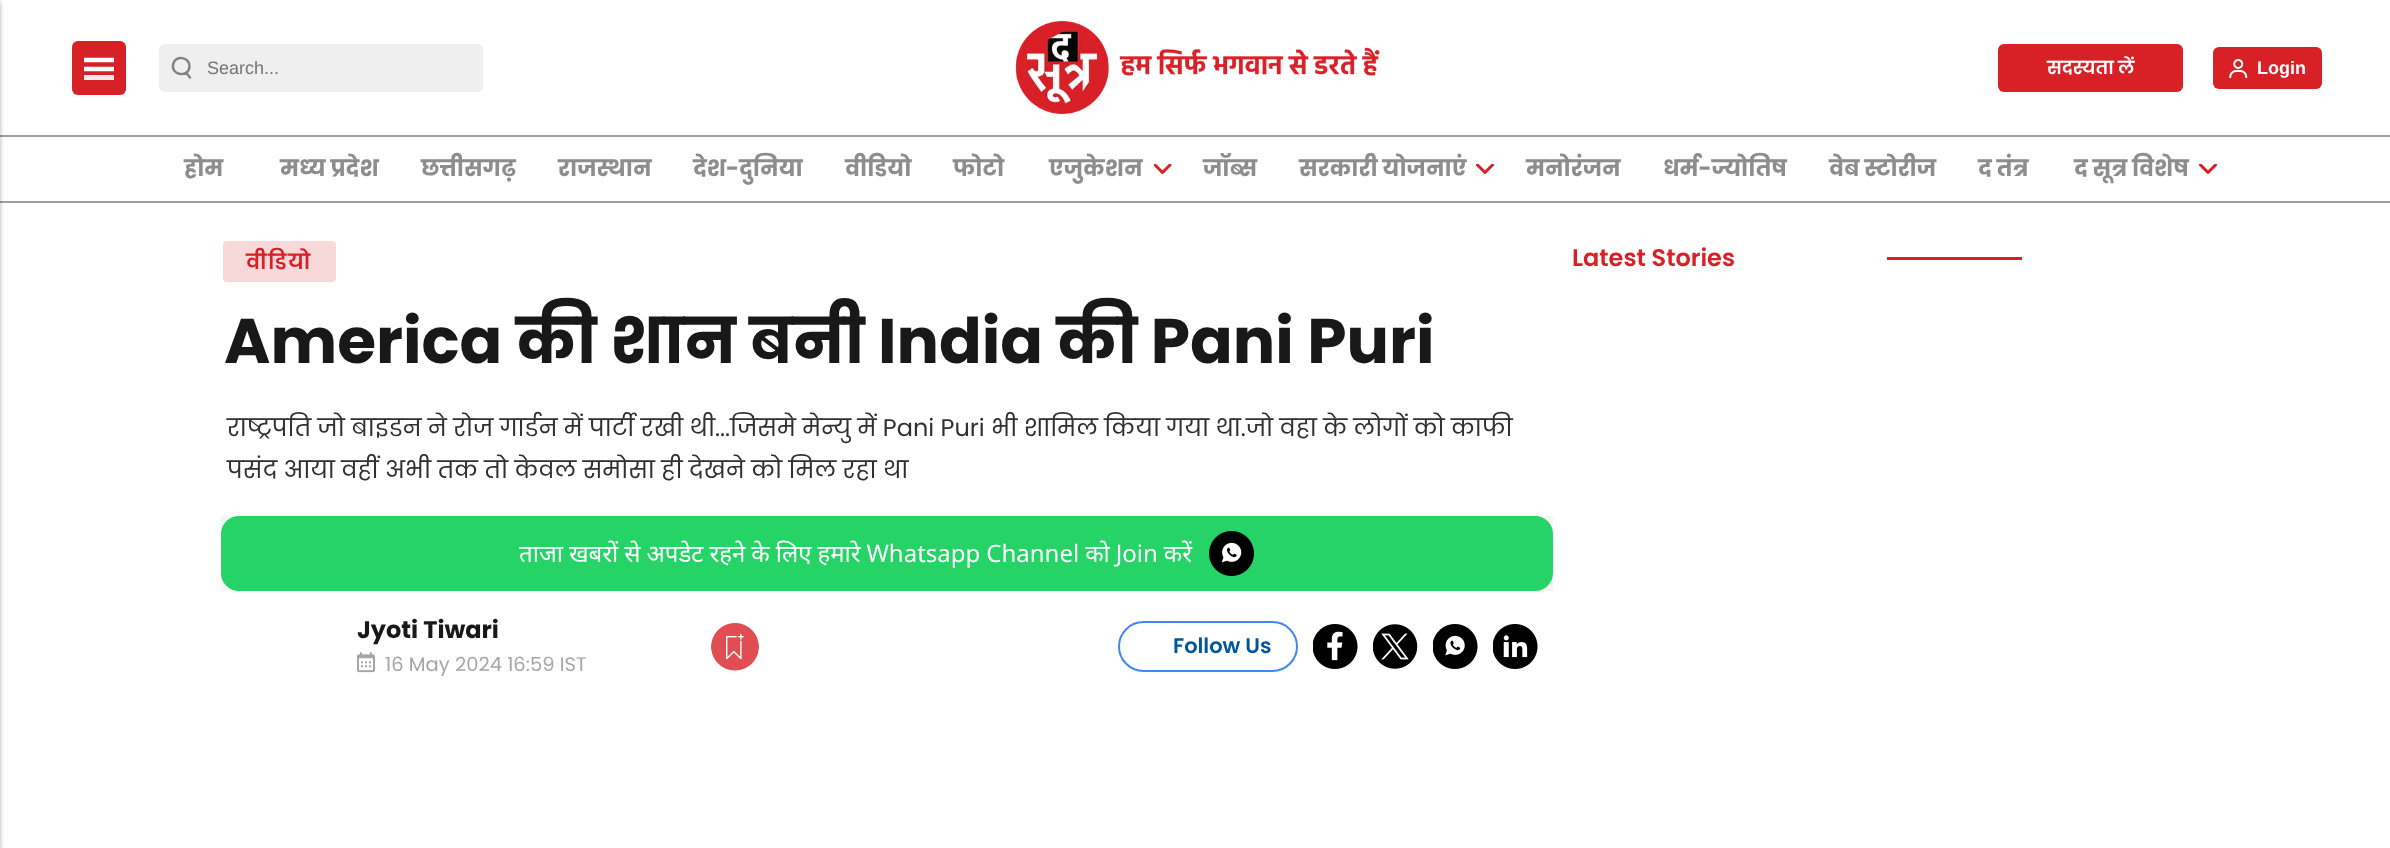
<!DOCTYPE html>
<meta charset="utf-8">
<style>body { margin: 0 } canvas { display: block }</style>
<canvas id="canvas" width="2390" height="848"></canvas>
<img id="img1" src="images/1.png" hidden>
<img id="img2" src="images/2.png" hidden>
<img id="img3" src="images/3.png" hidden>
<img id="img4" src="images/4.png" hidden>
<img id="img5" src="images/5.png" hidden>
<img id="img6" src="images/6.png" hidden>
<img id="img7" src="images/7.png" hidden>
<img id="img8" src="images/8.png" hidden>
<img id="img9" src="images/9.png" hidden>
<script>
window.onload = function () {
    const canvas = document.getElementById('canvas');
    const context = canvas.getContext('2d');
    context.miterLimit = 4;
    context.fontKerning = 'normal';

    context.fillStyle = 'rgb(255, 255, 255)';
    context.fillRect(0, 0, 2390, 848);
    context.fillStyle = 'rgb(160, 160, 160)';
    context.fillRect(0, 135, 2390, 2);
    context.fillRect(0, 201, 2390, 2);
    context.fillStyle = 'rgba(0, 0, 0, 0.22)';
    context.filter = 'blur(2px)';
    context.beginPath();
    context.rect(-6, 3, 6, 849);
    context.fill();
    context.filter = 'none';
    context.fillStyle = 'rgba(0, 0, 0, 0.12)';
    context.filter = 'blur(2px)';
    context.beginPath();
    context.rect(-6, 0, 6, 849);
    context.fill();
    context.filter = 'none';
    context.fillStyle = 'rgb(216, 32, 39)';
    context.beginPath();
    context.roundRect(72, 41, 54, 54, 6);
    context.fill();
    context.beginPath();
    context.moveTo(84, 69);
    context.lineTo(114, 69);
    context.moveTo(84, 60);
    context.lineTo(114, 60);
    context.strokeStyle = 'rgb(255, 255, 255)';
    context.lineWidth = 4.5;
    context.stroke();
    context.fillStyle = 'rgb(251, 233, 233)';
    context.fillRect(84, 75, 30, 5);
    context.fillStyle = 'rgb(239, 239, 239)';
    context.beginPath();
    context.roundRect(159, 44, 324, 48, 6);
    context.fill();
    context.beginPath();
    context.moveTo(189.5, 67);
    context.bezierCurveTo(188, 78, 171.5, 75.5, 173, 65);
    context.bezierCurveTo(174.5, 54, 190.5, 57, 189.5, 67);
    context.closePath();
    context.moveTo(190, 77.5);
    context.lineTo(186, 72.5);
    context.strokeStyle = 'rgb(130, 130, 130)';
    context.lineWidth = 2.4;
    context.lineCap = 'round';
    context.lineJoin = 'round';
    context.stroke();
    context.beginPath();
    context.roundRect(204, 44, 279, 48, 6);
    context.fill();
    context.drawImage(document.getElementById('img1'), 1015, 21, 365, 93);
    context.fillStyle = 'rgb(216, 32, 39)';
    context.beginPath();
    context.roundRect(1998, 44, 185, 48, 6);
    context.fill();
    context.beginPath();
    context.roundRect(2213, 47, 109, 42, 6);
    context.fill();
    context.drawImage(document.getElementById('img2'), 2229, 59, 19, 19);
    context.save();
    context.beginPath();
    context.rect(1154, 164, 18, 10);
    context.clip();
    context.beginPath();
    context.moveTo(1155, 165);
    context.lineTo(1162.5, 172.5);
    context.lineTo(1170, 165);
    context.strokeStyle = 'rgb(216, 32, 39)';
    context.lineWidth = 3;
    context.stroke();
    context.restore();
    context.save();
    context.beginPath();
    context.rect(1476, 164, 18, 10);
    context.clip();
    context.beginPath();
    context.moveTo(1477.5, 165);
    context.lineTo(1485, 172.5);
    context.lineTo(1492.5, 165);
    context.strokeStyle = 'rgb(216, 32, 39)';
    context.lineWidth = 3;
    context.stroke();
    context.restore();
    context.save();
    context.beginPath();
    context.rect(2199, 164, 18, 10);
    context.clip();
    context.beginPath();
    context.moveTo(2200.5, 165);
    context.lineTo(2208, 172.5);
    context.lineTo(2215.5, 165);
    context.strokeStyle = 'rgb(216, 32, 39)';
    context.lineWidth = 3;
    context.stroke();
    context.restore();
    context.fillStyle = 'rgb(248, 217, 218)';
    context.beginPath();
    context.roundRect(222, 240, 115, 43, 5);
    context.fill();
    context.strokeStyle = 'rgb(255, 255, 255)';
    context.lineWidth = 2;
    context.lineJoin = 'miter';
    context.stroke();
    context.fillStyle = 'rgb(245, 245, 245)';
    context.fillRect(221, 516, 1332, 75);
    context.fillStyle = 'rgb(37, 211, 102)';
    context.beginPath();
    context.roundRect(221, 516, 1332, 75, 18);
    context.fill();
    context.drawImage(document.getElementById('img3'), 1209, 531, 45, 45);
    context.drawImage(document.getElementById('img4'), 357, 652, 18, 21);
    context.drawImage(document.getElementById('img5'), 711, 623, 48, 48);
    context.beginPath();
    context.roundRect(1119, 622, 178, 49, 24.5);
    context.strokeStyle = 'rgb(64, 134, 244)';
    context.stroke();
    context.drawImage(document.getElementById('img6'), 1313, 624, 45, 45);
    context.drawImage(document.getElementById('img7'), 1373, 624, 45, 45);
    context.drawImage(document.getElementById('img8'), 1433, 624, 45, 45);
    context.drawImage(document.getElementById('img9'), 1493, 624, 45, 45);
    context.fillStyle = 'rgb(216, 32, 39)';
    context.fillRect(1887, 257, 135, 3);
    context.font = '18px Liberation Sans';
    context.fillStyle = 'rgb(117, 117, 117)';
    context.fillText('Search...', 207, 74);
    context.font = '600 18px Poppins';
    context.fillStyle = 'rgb(255, 255, 255)';
    context.fillText('सदस्यता लें', 2047, 74);
    context.font = 'bold 18px Liberation Sans';
    context.fillText('Login', 2257, 74);
    context.font = 'bold 22.5px Poppins';
    context.fillStyle = 'rgb(141, 141, 141)';
    context.fillText('होम', 184, 176);
    context.fillText('मध्‍य प्रदेश', 280, 176);
    context.fillText('छत्तीसगढ़', 421, 176);
    context.fillText('राजस्थान', 558, 176);
    context.fillText('देश-दुनिया', 693, 176);
    context.fillText('वीडियो', 845, 176);
    context.fillText('फोटो', 953, 176);
    context.fillText('एजुकेशन', 1049, 176);
    context.fillText('जॉब्स', 1203, 176);
    context.fillText('सरकारी योजनाएं', 1299, 176);
    context.fillText('मनोरंजन', 1526, 176);
    context.fillText('धर्म-ज्योतिष', 1663, 176);
    context.fillText('वेब स्टोरीज', 1829, 176);
    context.fillText('द तंत्र', 1978, 176);
    context.fillText('द सूत्र विशेष', 2074, 176);
    context.letterSpacing = '1.5px';
    context.font = '600 21px Poppins';
    context.fillStyle = 'rgb(216, 32, 39)';
    context.fillText('वीडियो', 246, 269);
    context.letterSpacing = '0px';
    context.font = 'bold 63px Poppins';
    context.fillStyle = 'rgb(24, 24, 24)';
    context.fillText('America की शान बनी India की Pani Puri', 224, 363);
    context.font = '24px Poppins';
    context.fillStyle = 'rgb(48, 48, 48)';
    context.fillText('राष्ट्रपति जो बाइडन ने रोज गार्डन में पार्टी रखी थी...जिसमे मेन्यु में Pani Puri भी शामिल किया गया था.जो वहा के लोगों को काफी', 227, 436);
    context.fillText('पसंद आया वहीं अभी तक तो केवल समोसा ही देखने को मिल रहा था', 227, 478);
    context.wordSpacing = '-0.25px';
    context.font = '24px Noto Sans';
    context.fillStyle = 'rgb(255, 255, 255)';
    context.fillText('ताजा खबरों से अपडेट रहने के लिए हमारे Whatsapp Channel को Join करें', 519, 562);
    context.wordSpacing = '0px';
    context.font = 'bold 24px Poppins';
    context.fillStyle = 'rgb(24, 24, 24)';
    context.fillText('Jyoti Tiwari', 357, 638);
    context.font = '19.5px Poppins';
    context.fillStyle = 'rgb(169, 165, 165)';
    context.fillText('16 May 2024 16:59 IST', 385, 671);
    context.font = '600 21px Poppins';
    context.fillStyle = 'rgb(1, 87, 155)';
    context.fillText('Follow Us', 1173, 653);
    context.font = '600 24px Poppins';
    context.fillStyle = 'rgb(216, 32, 39)';
    context.fillText('Latest Stories', 1572, 266);
};
</script>
